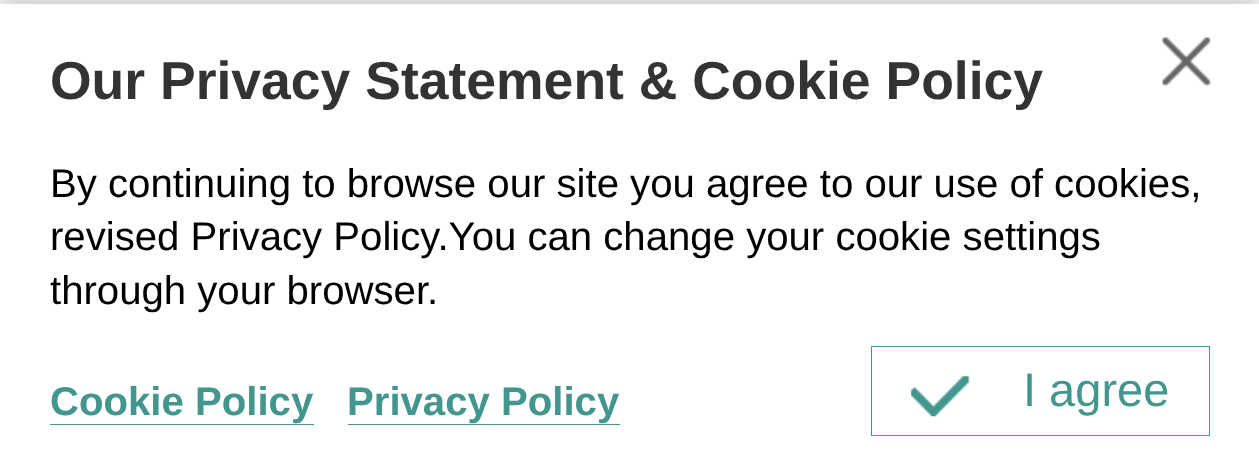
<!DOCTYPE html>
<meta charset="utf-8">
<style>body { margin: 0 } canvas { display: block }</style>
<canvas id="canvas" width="1259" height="469"></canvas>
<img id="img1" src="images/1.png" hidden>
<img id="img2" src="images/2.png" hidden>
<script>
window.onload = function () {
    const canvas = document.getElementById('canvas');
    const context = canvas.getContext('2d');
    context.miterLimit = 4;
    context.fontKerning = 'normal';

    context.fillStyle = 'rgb(251, 251, 251)';
    context.fillRect(0, 0, 1259, 469);
    context.fillStyle = 'rgba(0, 0, 0, 0.19)';
    context.filter = 'blur(12.5px)';
    context.beginPath();
    context.rect(0, -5, 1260, 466);
    context.fill();
    context.filter = 'none';
    context.fillStyle = 'rgb(255, 255, 255)';
    context.fillRect(0, 4, 1259, 465);
    context.drawImage(document.getElementById('img1'), 1162, 37, 49, 49);
    context.fillStyle = 'rgb(67, 150, 141)';
    context.fillRect(50, 424, 264, 1);
    context.fillRect(348, 424, 272, 1);
    context.strokeStyle = 'rgb(67, 150, 141)';
    context.strokeRect(871.5, 346.5, 338, 89);
    context.drawImage(document.getElementById('img2'), 911, 376, 59, 41);
    context.font = 'bold 53.5px Liberation Sans';
    context.fillStyle = 'rgb(51, 51, 51)';
    context.fillText('Our Privacy Statement & Cookie Policy', 50, 99);
    context.font = '40.15px Liberation Sans';
    context.fillStyle = 'rgb(0, 0, 0)';
    context.fillText('By continuing to browse our site you agree to our use of cookies,', 50, 197);
    context.fillText('revised Privacy Policy.You can change your cookie settings', 50, 250);
    context.fillText('through your browser.', 50, 304);
    context.font = 'bold 40.15px Liberation Sans';
    context.fillStyle = 'rgb(67, 150, 141)';
    context.fillText('Cookie Policy', 50, 415);
    context.fillText('Privacy Policy', 347, 415);
    context.font = '47px Liberation Sans';
    context.fillText('I agree', 1023, 406);
};
</script>
